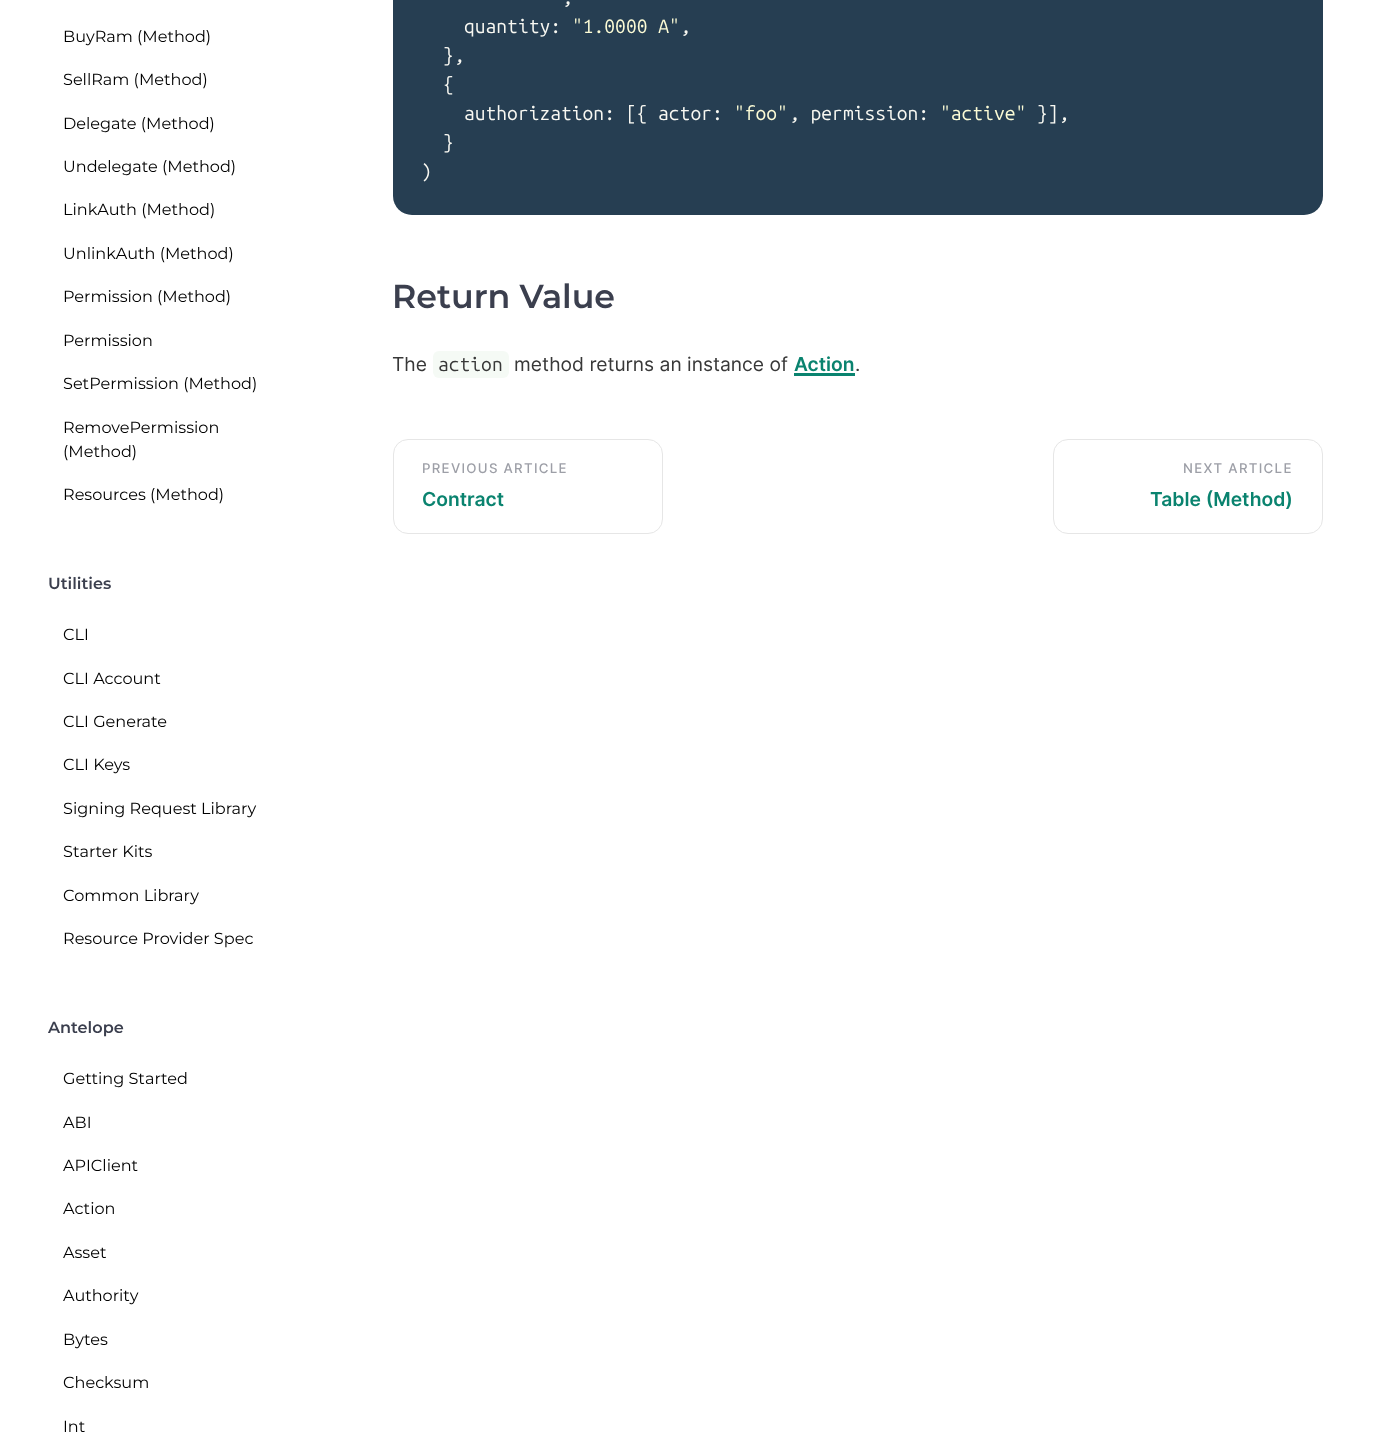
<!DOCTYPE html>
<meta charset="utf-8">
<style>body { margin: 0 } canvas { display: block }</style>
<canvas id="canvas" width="1395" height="1452"></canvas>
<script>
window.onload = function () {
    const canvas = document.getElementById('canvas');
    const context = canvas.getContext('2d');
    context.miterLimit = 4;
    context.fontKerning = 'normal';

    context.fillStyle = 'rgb(255, 255, 255)';
    context.fillRect(0, 0, 1395, 1452);
    context.fillStyle = 'rgb(38, 62, 82)';
    context.beginPath();
    context.roundRect(393, -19, 930, 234, 19);
    context.fill();
    context.fillStyle = 'rgb(245, 250, 245)';
    context.beginPath();
    context.roundRect(433, 351, 76, 27, 6);
    context.fill();
    context.fillStyle = 'rgb(10, 131, 111)';
    context.fillRect(794, 373, 61, 3);
    context.beginPath();
    context.roundRect(393.5, 439.5, 269, 94, 14.5);
    context.strokeStyle = 'rgb(230, 230, 230)';
    context.stroke();
    context.beginPath();
    context.roundRect(1053.5, 439.5, 269, 94, 14.5);
    context.stroke();
    context.font = '16.1px Montserrat';
    context.fillStyle = 'rgb(0, 0, 0)';
    context.fillText('BuyRam (Method)', 63, 42);
    context.fillText('SellRam (Method)', 63, 85);
    context.fillText('Delegate (Method)', 63, 129);
    context.fillText('Undelegate (Method)', 63, 172);
    context.fillText('LinkAuth (Method)', 63, 215);
    context.fillText('UnlinkAuth (Method)', 63, 259);
    context.fillText('Permission (Method)', 63, 302);
    context.fillText('Permission', 63, 346);
    context.fillText('SetPermission (Method)', 63, 389);
    context.fillText('RemovePermission', 63, 433);
    context.fillText('(Method)', 63, 457);
    context.fillText('Resources (Method)', 63, 500);
    context.font = '600 16.1px Montserrat';
    context.fillStyle = 'rgb(59, 63, 78)';
    context.fillText('Utilities', 48, 589);
    context.font = '16.1px Montserrat';
    context.fillStyle = 'rgb(0, 0, 0)';
    context.fillText('CLI', 63, 640);
    context.fillText('CLI Account', 63, 684);
    context.fillText('CLI Generate', 63, 727);
    context.fillText('CLI Keys', 63, 770);
    context.fillText('Signing Request Library', 63, 814);
    context.fillText('Starter Kits', 63, 857);
    context.fillText('Common Library', 63, 901);
    context.fillText('Resource Provider Spec', 63, 944);
    context.font = '600 16.1px Montserrat';
    context.fillStyle = 'rgb(59, 63, 78)';
    context.fillText('Antelope', 48, 1033);
    context.font = '16.1px Montserrat';
    context.fillStyle = 'rgb(0, 0, 0)';
    context.fillText('Getting Started', 63, 1084);
    context.fillText('ABI', 63, 1128);
    context.fillText('APIClient', 63, 1171);
    context.fillText('Action', 63, 1214);
    context.fillText('Asset', 63, 1258);
    context.fillText('Authority', 63, 1301);
    context.fillText('Bytes', 63, 1345);
    context.fillText('Checksum', 63, 1388);
    context.fillText('Int', 63, 1432);
    context.font = '19.25px Ubuntu Mono';
    context.fillStyle = 'rgb(248, 248, 242)';
    context.fillText(',', 562, 4);
    context.fillText('quantity:', 464, 33);
    context.fillStyle = 'rgb(252, 252, 214)';
    context.fillText('"1.0000 A"', 572, 33);
    context.fillStyle = 'rgb(248, 248, 242)';
    context.fillText(',', 680, 33);
    context.fillText('},', 443, 62);
    context.fillText('{', 443, 91);
    context.fillText('authorization: [{ actor:', 464, 120);
    context.fillStyle = 'rgb(252, 252, 214)';
    context.fillText('"foo"', 734, 120);
    context.fillStyle = 'rgb(248, 248, 242)';
    context.fillText(', permission:', 789, 120);
    context.fillStyle = 'rgb(252, 252, 214)';
    context.fillText('"active"', 940, 120);
    context.fillStyle = 'rgb(248, 248, 242)';
    context.fillText('}],', 1037, 120);
    context.fillText('}', 443, 149);
    context.fillText(')', 421, 178);
    context.font = '600 33.25px Montserrat';
    context.fillStyle = 'rgb(59, 63, 78)';
    context.fillText('Return Value', 392, 308);
    context.font = '19.25px Inter';
    context.fillStyle = 'rgb(56, 56, 56)';
    context.fillText('The', 392, 371);
    context.font = '19.25px Ubuntu Mono';
    context.fillText('action', 438, 371);
    context.font = '19.25px Inter';
    context.fillText('method returns an instance of', 514, 371);
    context.font = '600 19.25px Inter';
    context.fillStyle = 'rgb(10, 131, 111)';
    context.fillText('Action', 794, 371);
    context.font = '19.25px Inter';
    context.fillStyle = 'rgb(56, 56, 56)';
    context.fillText('.', 855, 371);
    context.letterSpacing = '1.3px';
    context.font = '500 13.25px Inter';
    context.fillStyle = 'rgb(157, 159, 167)';
    context.fillText('PREVIOUS ARTICLE', 422, 473);
    context.letterSpacing = '0px';
    context.font = '600 19.25px Inter';
    context.fillStyle = 'rgb(10, 131, 111)';
    context.fillText('Contract', 422, 506);
    context.letterSpacing = '1.3px';
    context.font = '500 13.25px Inter';
    context.fillStyle = 'rgb(157, 159, 167)';
    context.fillText('NEXT ARTICLE', 1183, 473);
    context.letterSpacing = '0px';
    context.font = '600 19.25px Inter';
    context.fillStyle = 'rgb(10, 131, 111)';
    context.fillText('Table (Method)', 1150, 506);
};
</script>
